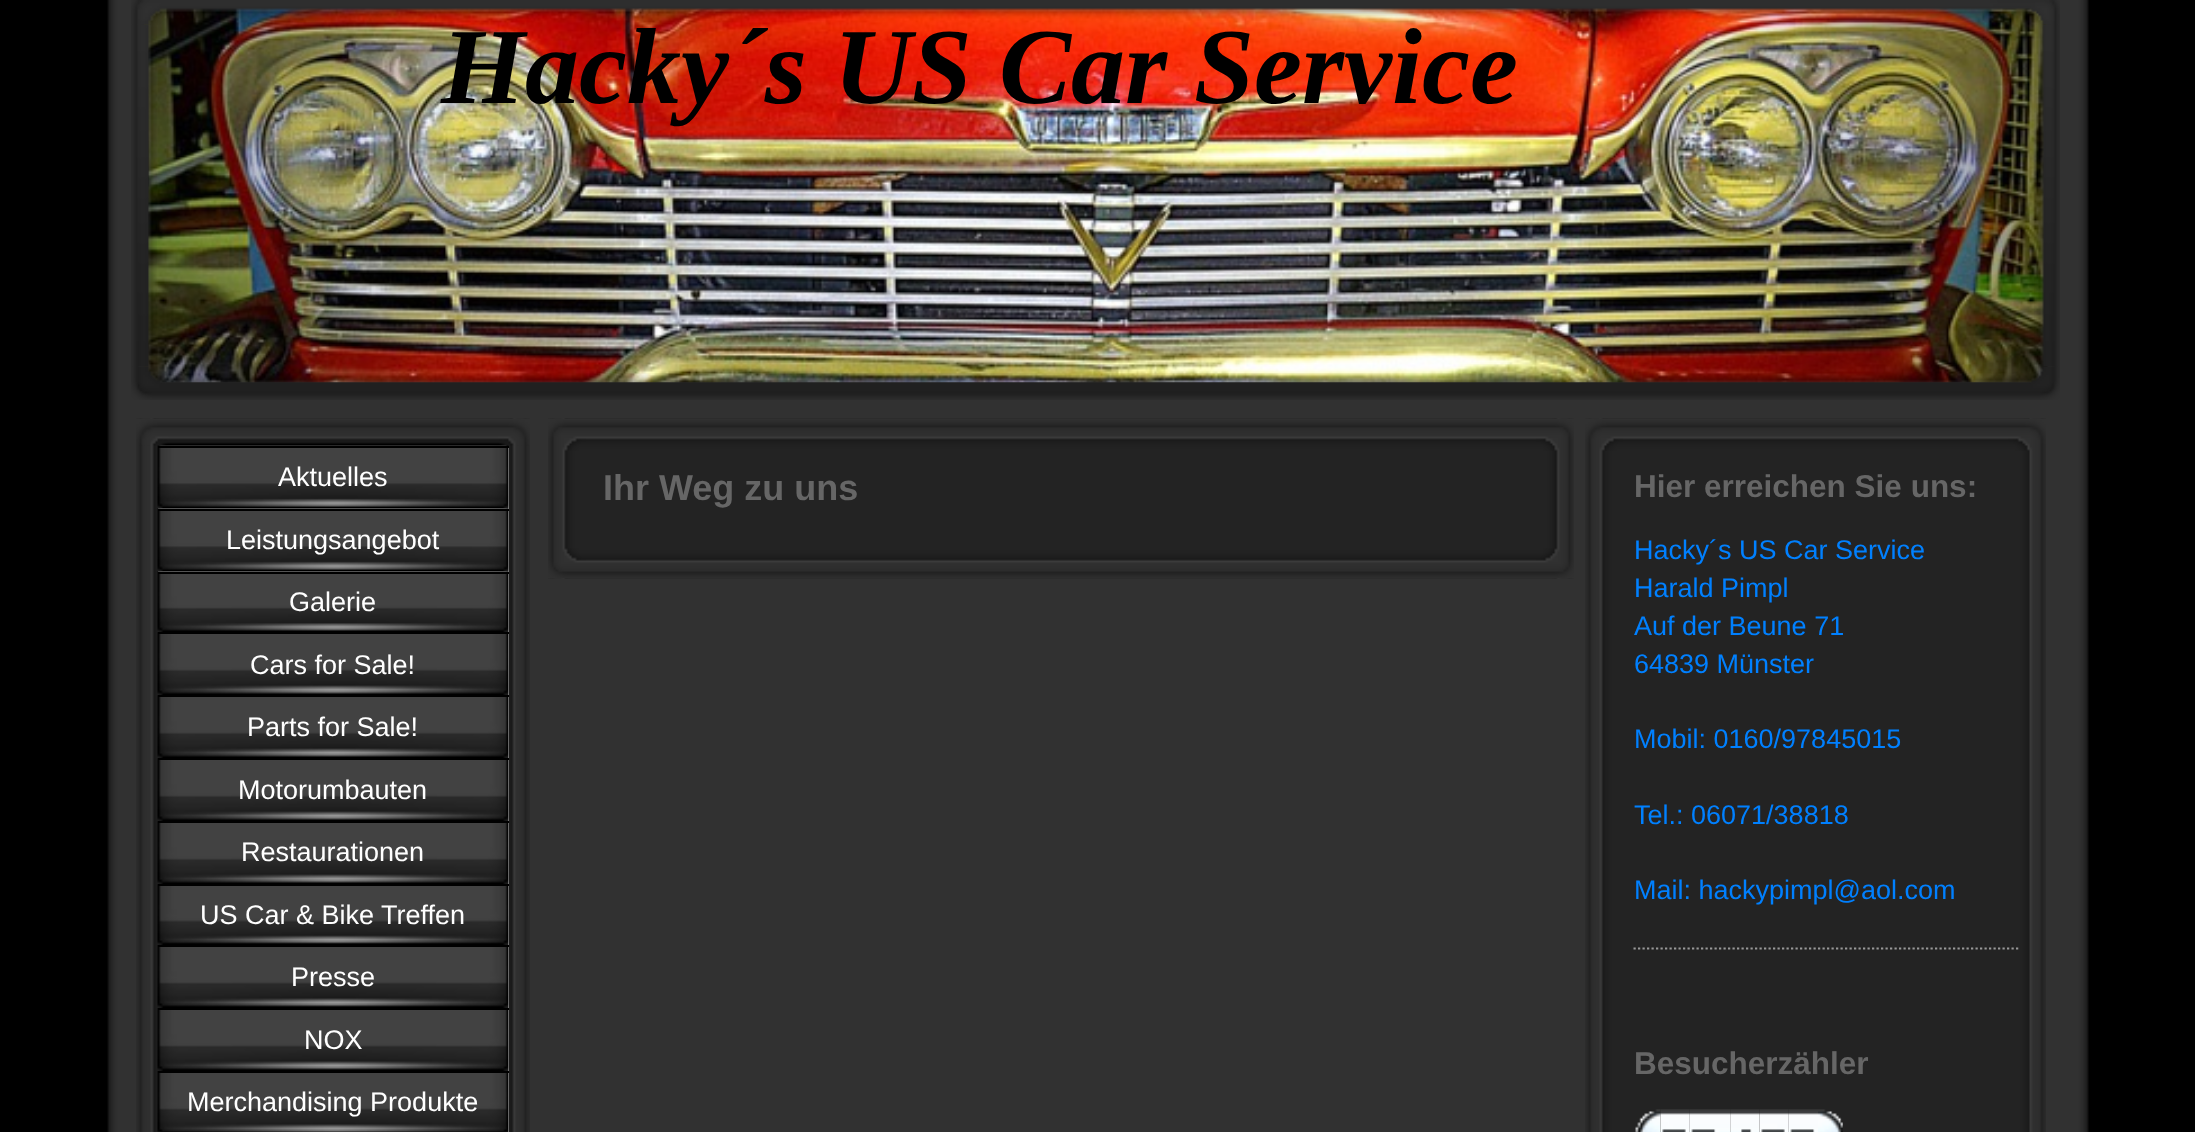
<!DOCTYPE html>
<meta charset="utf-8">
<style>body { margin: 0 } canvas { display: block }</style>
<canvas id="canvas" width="2195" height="1132"></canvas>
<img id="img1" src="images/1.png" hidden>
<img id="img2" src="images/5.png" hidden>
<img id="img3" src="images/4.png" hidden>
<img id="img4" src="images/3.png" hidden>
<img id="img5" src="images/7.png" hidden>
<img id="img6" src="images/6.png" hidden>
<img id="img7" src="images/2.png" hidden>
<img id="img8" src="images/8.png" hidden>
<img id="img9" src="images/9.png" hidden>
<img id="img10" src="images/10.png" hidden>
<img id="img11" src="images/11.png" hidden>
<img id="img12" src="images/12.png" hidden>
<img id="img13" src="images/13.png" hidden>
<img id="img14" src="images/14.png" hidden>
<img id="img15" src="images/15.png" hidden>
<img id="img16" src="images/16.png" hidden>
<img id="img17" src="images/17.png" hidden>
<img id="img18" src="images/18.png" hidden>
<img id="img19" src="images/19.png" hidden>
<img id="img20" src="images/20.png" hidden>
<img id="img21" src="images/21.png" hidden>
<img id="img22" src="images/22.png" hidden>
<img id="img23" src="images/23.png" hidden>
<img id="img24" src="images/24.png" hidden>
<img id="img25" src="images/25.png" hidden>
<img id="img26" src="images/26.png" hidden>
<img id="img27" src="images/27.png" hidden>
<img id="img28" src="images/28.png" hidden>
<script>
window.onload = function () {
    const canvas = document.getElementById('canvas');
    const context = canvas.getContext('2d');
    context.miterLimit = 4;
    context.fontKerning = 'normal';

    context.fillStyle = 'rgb(0, 0, 0)';
    context.fillRect(0, 0, 2195, 1132);
    context.drawImage(document.getElementById('img1'), 107, 0, 1982, 1132);
    context.drawImage(document.getElementById('img2'), 159, 24, 1889, 359);
    context.drawImage(document.getElementById('img3'), 144, 8, 1904, 375);
    context.drawImage(document.getElementById('img4'), 131, 24, 26, 343);
    context.drawImage(document.getElementById('img5'), 131, 366, 1929, 34);
    context.drawImage(document.getElementById('img6'), 2034, 24, 26, 343);
    context.drawImage(document.getElementById('img7'), 131, 0, 1929, 25);
    context.drawImage(document.getElementById('img8'), 136, 418, 394, 714);
    context.drawImage(document.getElementById('img9'), 136, 418, 394, 28);
    context.fillStyle = 'rgb(204, 204, 204)';
    context.fillRect(158, 448, 351, 61);
    context.drawImage(document.getElementById('img10'), 157, 445, 352, 64);
    context.fillStyle = 'rgb(0, 0, 0)';
    context.fillRect(158, 446, 351, 2);
    context.fillStyle = 'rgb(204, 204, 204)';
    context.fillRect(158, 511, 351, 61);
    context.drawImage(document.getElementById('img11'), 157, 508, 352, 64);
    context.fillStyle = 'rgb(0, 0, 0)';
    context.fillRect(158, 509, 351, 2);
    context.fillStyle = 'rgb(204, 204, 204)';
    context.fillRect(508, 574, 1, 58);
    context.drawImage(document.getElementById('img12'), 157, 571, 352, 62);
    context.fillStyle = 'rgb(0, 0, 0)';
    context.fillRect(158, 572, 351, 2);
    context.fillStyle = 'rgb(204, 204, 204)';
    context.fillRect(508, 634, 1, 61);
    context.drawImage(document.getElementById('img13'), 157, 632, 352, 64);
    context.fillStyle = 'rgb(0, 0, 0)';
    context.fillRect(158, 632, 351, 2);
    context.fillStyle = 'rgb(204, 204, 204)';
    context.fillRect(508, 697, 1, 61);
    context.drawImage(document.getElementById('img13'), 157, 695, 352, 64);
    context.fillStyle = 'rgb(0, 0, 0)';
    context.fillRect(158, 695, 351, 2);
    context.fillStyle = 'rgb(204, 204, 204)';
    context.fillRect(508, 760, 1, 61);
    context.drawImage(document.getElementById('img13'), 157, 758, 352, 64);
    context.fillStyle = 'rgb(0, 0, 0)';
    context.fillRect(158, 758, 351, 2);
    context.fillStyle = 'rgb(204, 204, 204)';
    context.fillRect(508, 823, 1, 61);
    context.drawImage(document.getElementById('img13'), 157, 821, 352, 64);
    context.fillStyle = 'rgb(0, 0, 0)';
    context.fillRect(158, 821, 351, 2);
    context.fillStyle = 'rgb(204, 204, 204)';
    context.fillRect(508, 886, 1, 59);
    context.drawImage(document.getElementById('img14'), 157, 884, 352, 61);
    context.fillStyle = 'rgb(0, 0, 0)';
    context.fillRect(158, 884, 351, 2);
    context.fillStyle = 'rgb(204, 204, 204)';
    context.fillRect(508, 947, 1, 61);
    context.drawImage(document.getElementById('img15'), 157, 945, 352, 63);
    context.fillStyle = 'rgb(0, 0, 0)';
    context.fillRect(158, 945, 351, 2);
    context.fillStyle = 'rgb(204, 204, 204)';
    context.fillRect(508, 1010, 1, 61);
    context.drawImage(document.getElementById('img15'), 157, 1008, 352, 63);
    context.fillStyle = 'rgb(0, 0, 0)';
    context.fillRect(158, 1008, 351, 2);
    context.fillStyle = 'rgb(204, 204, 204)';
    context.fillRect(508, 1073, 1, 59);
    context.drawImage(document.getElementById('img16'), 157, 1071, 352, 61);
    context.fillStyle = 'rgb(0, 0, 0)';
    context.fillRect(158, 1071, 351, 2);
    context.drawImage(document.getElementById('img17'), 548, 418, 1026, 161);
    context.drawImage(document.getElementById('img18'), 548, 418, 1026, 33);
    context.drawImage(document.getElementById('img19'), 548, 548, 1026, 30);
    context.drawImage(document.getElementById('img20'), 1585, 418, 461, 714);
    context.drawImage(document.getElementById('img21'), 1585, 418, 461, 33);
    context.beginPath();
    context.moveTo(1633.5, 948.5);
    context.lineTo(2020.5, 948.5);
    context.strokeStyle = 'rgb(153, 153, 153)';
    context.lineWidth = 2.2;
    context.setLineDash([2.25, 2.25]);
    context.stroke();
    context.drawImage(document.getElementById('img22'), 1635, 1109, 26, 23);
    context.drawImage(document.getElementById('img23'), 1660, 1109, 30, 23);
    context.drawImage(document.getElementById('img24'), 1689, 1109, 30, 23);
    context.drawImage(document.getElementById('img25'), 1719, 1109, 12, 23);
    context.drawImage(document.getElementById('img26'), 1730, 1109, 30, 23);
    context.drawImage(document.getElementById('img27'), 1759, 1109, 30, 23);
    context.drawImage(document.getElementById('img24'), 1788, 1109, 30, 23);
    context.drawImage(document.getElementById('img28'), 1818, 1109, 25, 23);
    context.font = 'italic bold 108px Liberation Serif';
    context.fillText('Hacky´s US Car Service', 441, 103);
    context.font = '27px Liberation Sans';
    context.fillStyle = 'rgb(255, 255, 255)';
    context.fillText('Aktuelles', 278, 486);
    context.fillText('Leistungsangebot', 226, 549);
    context.fillText('Galerie', 289, 611);
    context.fillText('Cars for Sale!', 250, 674);
    context.fillText('Parts for Sale!', 247, 736);
    context.fillText('Motorumbauten', 238, 799);
    context.fillText('Restaurationen', 241, 861);
    context.fillText('US Car & Bike Treffen', 200, 924);
    context.fillText('Presse', 291, 986);
    context.fillText('NOX', 304, 1049);
    context.fillText('Merchandising Produkte', 187, 1111);
    context.font = 'bold 36px Liberation Sans';
    context.fillStyle = 'rgb(102, 102, 102)';
    context.fillText('Ihr Weg zu uns', 603, 500);
    context.font = 'bold 31.5px Liberation Sans';
    context.fillText('Hier erreichen Sie uns:', 1634, 497);
    context.font = '27px Liberation Sans';
    context.fillStyle = 'rgb(0, 128, 255)';
    context.fillText('Hacky´s US Car Service', 1634, 559);
    context.fillText('Harald Pimpl', 1634, 597);
    context.fillText('Auf der Beune 71', 1634, 635);
    context.fillText('64839 Münster', 1634, 673);
    context.fillText('Mobil: 0160/97845015', 1634, 748);
    context.fillText('Tel.: 06071/38818', 1634, 824);
    context.fillText('Mail: hackypimpl@aol.com', 1634, 899);
    context.font = 'bold 31.5px Liberation Sans';
    context.fillStyle = 'rgb(102, 102, 102)';
    context.fillText('Besucherzähler', 1634, 1074);
};
</script>
